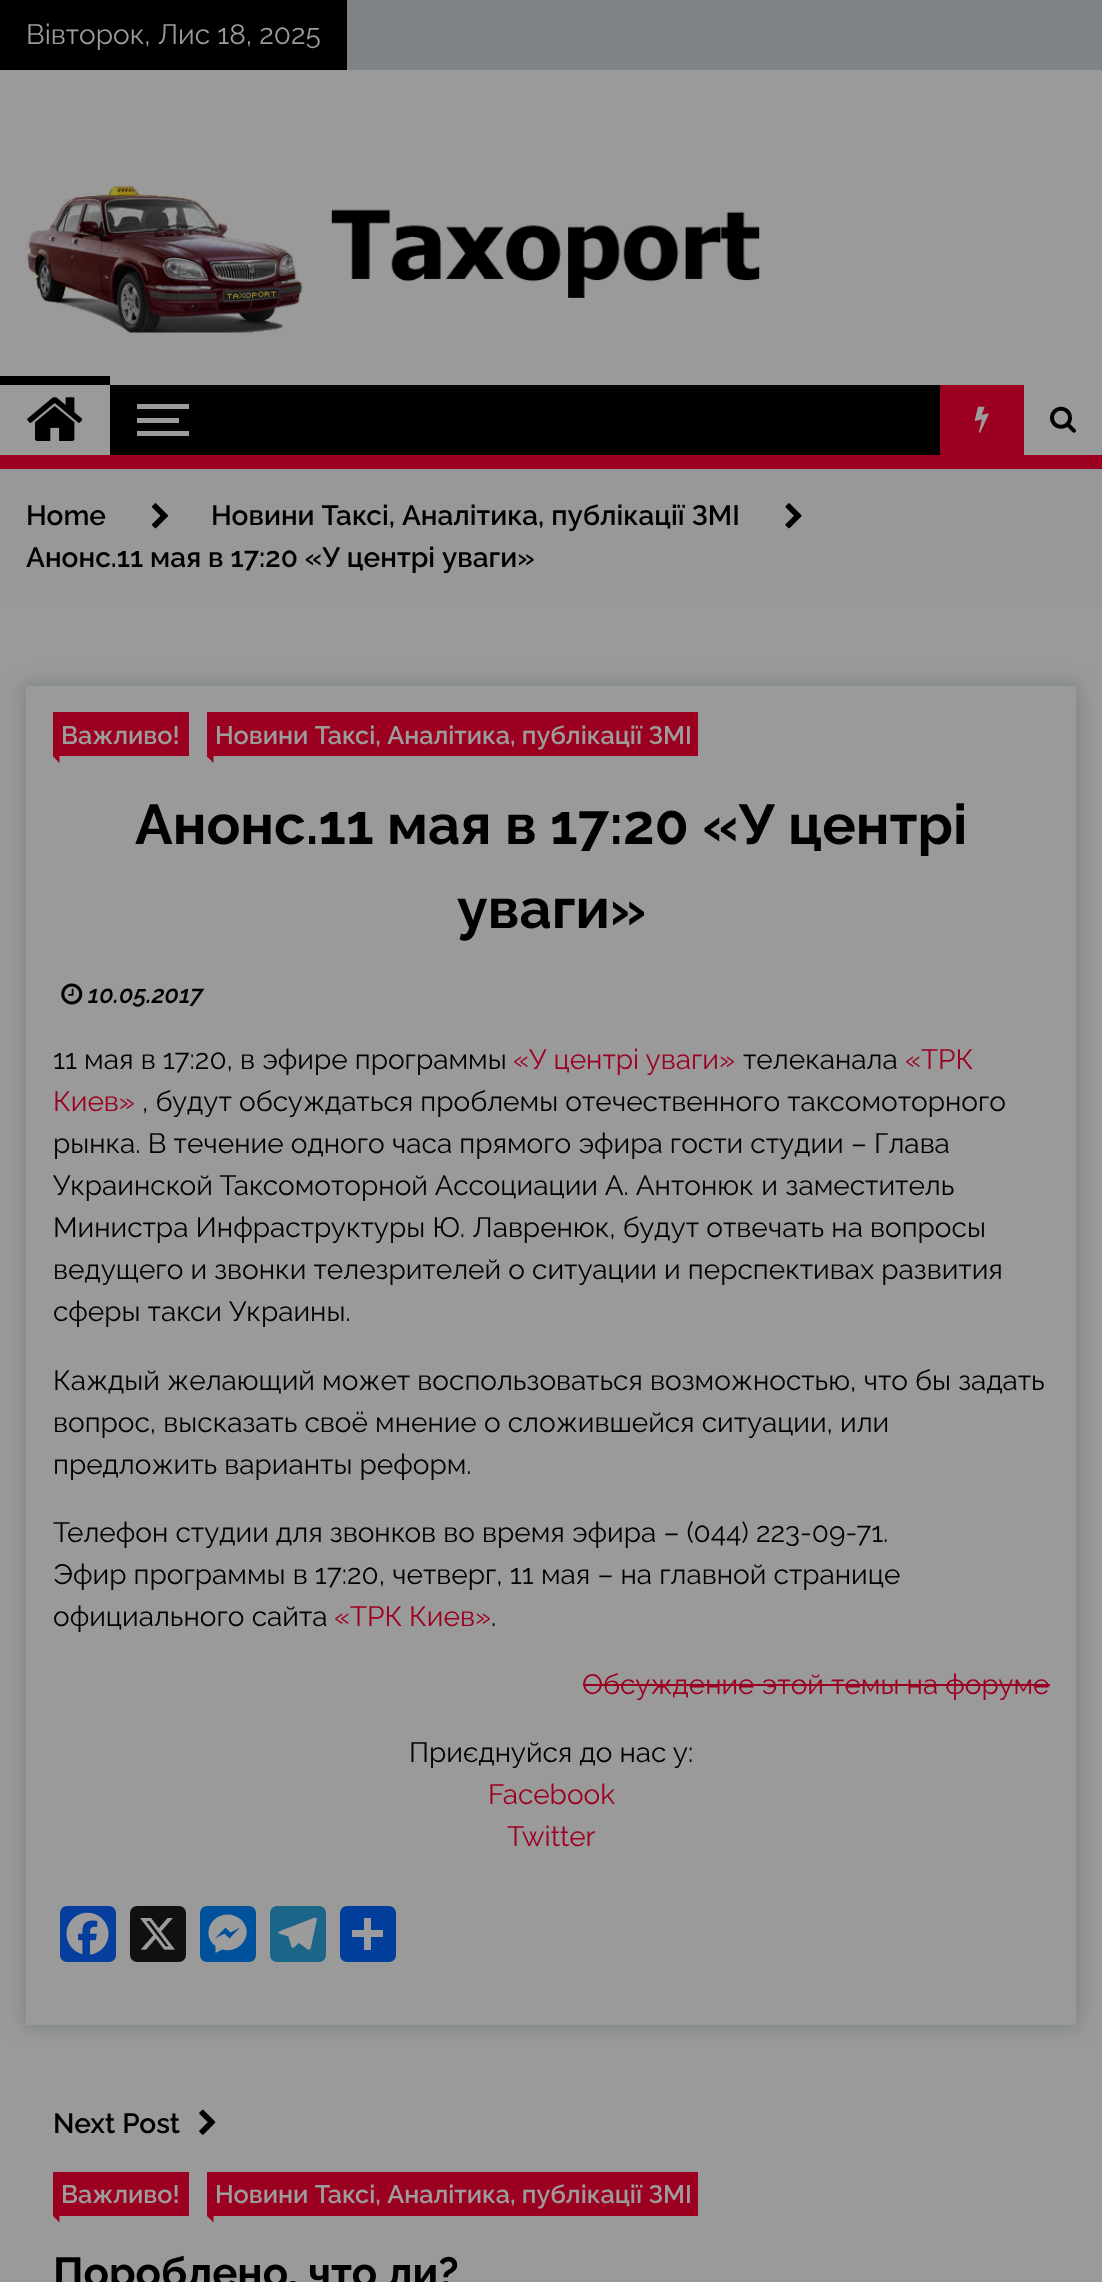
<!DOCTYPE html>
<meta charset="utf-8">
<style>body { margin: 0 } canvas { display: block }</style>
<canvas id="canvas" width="1102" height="2282"></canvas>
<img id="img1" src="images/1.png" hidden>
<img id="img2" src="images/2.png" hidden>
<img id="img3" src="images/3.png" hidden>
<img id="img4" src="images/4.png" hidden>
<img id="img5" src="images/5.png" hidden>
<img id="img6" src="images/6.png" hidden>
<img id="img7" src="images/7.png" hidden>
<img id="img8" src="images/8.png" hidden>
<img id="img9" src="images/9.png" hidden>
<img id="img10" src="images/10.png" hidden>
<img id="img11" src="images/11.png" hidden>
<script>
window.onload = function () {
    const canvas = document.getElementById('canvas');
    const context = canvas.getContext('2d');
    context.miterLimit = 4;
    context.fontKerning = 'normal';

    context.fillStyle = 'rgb(154, 154, 154)';
    context.fillRect(0, 0, 1102, 2282);
    context.fillStyle = 'rgb(126, 132, 134)';
    context.fillRect(347, 0, 755, 70);
    context.fillStyle = 'rgb(0, 0, 0)';
    context.fillRect(0, 0, 347, 70);
    context.drawImage(document.getElementById('img1'), 26, 186, 734, 147);
    context.fillRect(110, 385, 830, 70);
    context.fillRect(0, 376, 110, 9);
    context.drawImage(document.getElementById('img2'), 27, 397, 56, 44);
    context.fillStyle = 'rgb(156, 156, 156)';
    context.fillRect(137, 404, 52, 5);
    context.fillRect(137, 431, 52, 5);
    context.fillRect(137, 418, 42, 5);
    context.fillStyle = 'rgb(156, 0, 33)';
    context.fillRect(940, 385, 84, 70);
    context.drawImage(document.getElementById('img3'), 974, 406, 15, 27);
    context.drawImage(document.getElementById('img4'), 1050, 406, 26, 27);
    context.fillRect(0, 455, 1102, 14);
    context.fillStyle = 'rgb(151, 152, 153)';
    context.fillRect(0, 469, 1102, 139);
    context.drawImage(document.getElementById('img5'), 151, 503, 18, 26);
    context.drawImage(document.getElementById('img6'), 785, 503, 17, 26);
    context.save();
    context.beginPath();
    context.moveTo(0, 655);
    context.lineTo(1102, 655);
    context.lineTo(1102, 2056);
    context.lineTo(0, 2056);
    context.closePath();
    context.moveTo(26, 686);
    context.lineTo(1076, 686);
    context.lineTo(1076, 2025);
    context.lineTo(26, 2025);
    context.closePath();
    context.clip('evenodd');
    context.fillStyle = 'rgb(126, 132, 134)';
    context.filter = 'blur(9px)';
    context.beginPath();
    context.rect(23, 683, 1057, 1345);
    context.fill();
    context.filter = 'none';
    context.restore();
    context.fillStyle = 'rgb(156, 0, 33)';
    context.fillRect(53, 712, 136, 44);
    context.beginPath();
    context.moveTo(59.5, 756);
    context.lineTo(59.5, 763);
    context.lineTo(52.5, 756);
    context.closePath();
    context.fill();
    context.fillRect(207, 712, 491, 44);
    context.beginPath();
    context.moveTo(213.5, 756);
    context.lineTo(213.5, 763);
    context.lineTo(206.5, 756);
    context.closePath();
    context.fill();
    context.drawImage(document.getElementById('img7'), 61, 983, 22, 22);
    context.fillRect(583, 1684, 467, 2);
    context.fillStyle = 'rgb(5, 62, 156)';
    context.beginPath();
    context.roundRect(60, 1906, 56, 56, 7);
    context.fill();
    context.drawImage(document.getElementById('img8'), 66, 1912, 43, 43);
    context.fillStyle = 'rgb(16, 16, 16)';
    context.beginPath();
    context.roundRect(130, 1906, 56, 56, 7);
    context.fill();
    context.drawImage(document.getElementById('img9'), 140, 1918, 35, 32);
    context.fillStyle = 'rgb(0, 81, 156)';
    context.beginPath();
    context.roundRect(200, 1906, 56, 56, 7);
    context.fill();
    context.fillStyle = 'rgb(156, 156, 156)';
    context.beginPath();
    context.moveTo(227.5, 1914.5);
    context.bezierCurveTo(210, 1914.5, 201.5, 1935.5, 215.5, 1946);
    context.lineTo(215.5, 1953);
    context.lineTo(222, 1949.5);
    context.bezierCurveTo(240, 1954.5, 255.5, 1933.5, 241, 1919.5);
    context.bezierCurveTo(237.5, 1916.5, 232.5, 1914.5, 227.5, 1914.5);
    context.moveTo(229.5, 1938.5);
    context.lineTo(224.5, 1933.5);
    context.lineTo(215, 1938.5);
    context.lineTo(225.5, 1927.5);
    context.lineTo(230.5, 1932.5);
    context.lineTo(240, 1927.5);
    context.closePath();
    context.fill();
    context.fillStyle = 'rgb(27, 101, 137)';
    context.beginPath();
    context.roundRect(270, 1906, 56, 56, 7);
    context.fill();
    context.drawImage(document.getElementById('img10'), 278, 1917, 39, 33);
    context.fillStyle = 'rgb(1, 62, 156)';
    context.beginPath();
    context.roundRect(340, 1906, 56, 56, 7);
    context.fill();
    context.fillStyle = 'rgb(156, 156, 156)';
    context.fillRect(364, 1918, 7, 32);
    context.fillRect(352, 1930, 31, 7);
    context.drawImage(document.getElementById('img11'), 199, 2109, 17, 26);
    context.fillStyle = 'rgb(156, 0, 33)';
    context.fillRect(53, 2172, 136, 44);
    context.beginPath();
    context.moveTo(59.5, 2215.5);
    context.lineTo(59.5, 2222.5);
    context.lineTo(52.5, 2215.5);
    context.closePath();
    context.fill();
    context.fillRect(207, 2172, 491, 44);
    context.beginPath();
    context.moveTo(213.5, 2215.5);
    context.lineTo(213.5, 2222.5);
    context.lineTo(206.5, 2215.5);
    context.closePath();
    context.fill();
    context.font = '28px Raleway';
    context.fillStyle = 'rgb(156, 156, 156)';
    context.fillText('Вівторок, Лис 18, 2025', 26, 44);
    context.font = '600 28px Raleway';
    context.fillStyle = 'rgb(0, 0, 0)';
    context.fillText('Home', 26, 525);
    context.fillText('Новини Таксі, Аналітика, публікації ЗМІ', 211, 525);
    context.fillText('Анонс.11 мая в 17:20 «У центрі уваги»', 26, 567);
    context.font = '600 25.25px Raleway';
    context.fillStyle = 'rgb(156, 156, 156)';
    context.fillText('Важливо!', 61, 744);
    context.fillText('Новини Таксі, Аналітика, публікації ЗМІ', 215, 744);
    context.font = 'bold 56px Raleway';
    context.fillStyle = 'rgb(0, 0, 0)';
    context.fillText('Анонс.11 мая в 17:20 «У центрі', 135, 844);
    context.fillText('уваги»', 457, 928);
    context.font = 'italic 600 24.5px Raleway';
    context.fillText('10.05.2017', 88, 1003);
    context.font = '28px Raleway';
    context.fillText('11 мая в 17:20, в эфире программы', 53, 1069);
    context.fillStyle = 'rgb(156, 0, 33)';
    context.fillText('«У центрі уваги»', 513, 1069);
    context.fillStyle = 'rgb(0, 0, 0)';
    context.fillText('телеканала', 743, 1069);
    context.fillStyle = 'rgb(156, 0, 33)';
    context.fillText('«ТРК', 905, 1069);
    context.fillText('Киев»', 53, 1111);
    context.fillStyle = 'rgb(0, 0, 0)';
    context.fillText(', будут обсуждаться проблемы отечественного таксомоторного', 142, 1111);
    context.fillText('рынка. В течение одного часа прямого эфира гости студии – Глава', 53, 1153);
    context.wordSpacing = '0.5px';
    context.fillText('Украинской Таксомоторной Ассоциации А. Антонюк и заместитель', 53, 1195);
    context.wordSpacing = '0px';
    context.fillText('Министра Инфраструктуры Ю. Лавренюк, будут отвечать на вопросы', 53, 1237);
    context.fillText('ведущего и звонки телезрителей о ситуации и перспективах развития', 53, 1279);
    context.fillText('сферы такси Украины.', 53, 1321);
    context.fillText('Каждый желающий может воспользоваться возможностью, что бы задать', 53, 1390);
    context.fillText('вопрос, высказать своё мнение о сложившейся ситуации, или', 53, 1432);
    context.fillText('предложить варианты реформ.', 53, 1474);
    context.fillText('Телефон студии для звонков во время эфира – (044) 223-09-71.', 53, 1542);
    context.fillText('Эфир программы в 17:20, четверг, 11 мая – на главной странице', 53, 1584);
    context.fillText('официального сайта', 53, 1626);
    context.fillStyle = 'rgb(156, 0, 33)';
    context.fillText('«ТРК Киев»', 334, 1626);
    context.fillStyle = 'rgb(0, 0, 0)';
    context.fillText('.', 491, 1626);
    context.fillStyle = 'rgb(156, 0, 33)';
    context.fillText('Обсуждение этой темы на форуме', 582, 1694);
    context.fillStyle = 'rgb(0, 0, 0)';
    context.fillText('Приєднуйся до нас у:', 409, 1762);
    context.fillStyle = 'rgb(156, 0, 33)';
    context.fillText('Facebook', 488, 1804);
    context.fillText('Twitter', 507, 1846);
    context.font = '600 28px Raleway';
    context.fillStyle = 'rgb(0, 0, 0)';
    context.fillText('Next Post', 53, 2133);
    context.font = '600 25.25px Raleway';
    context.fillStyle = 'rgb(156, 156, 156)';
    context.fillText('Важливо!', 61, 2203);
    context.fillText('Новини Таксі, Аналітика, публікації ЗМІ', 215, 2203);
    context.font = 'bold 42px Raleway';
    context.fillStyle = 'rgb(0, 0, 0)';
    context.fillText('Пороблено, что ли?', 53, 2287);
};
</script>
